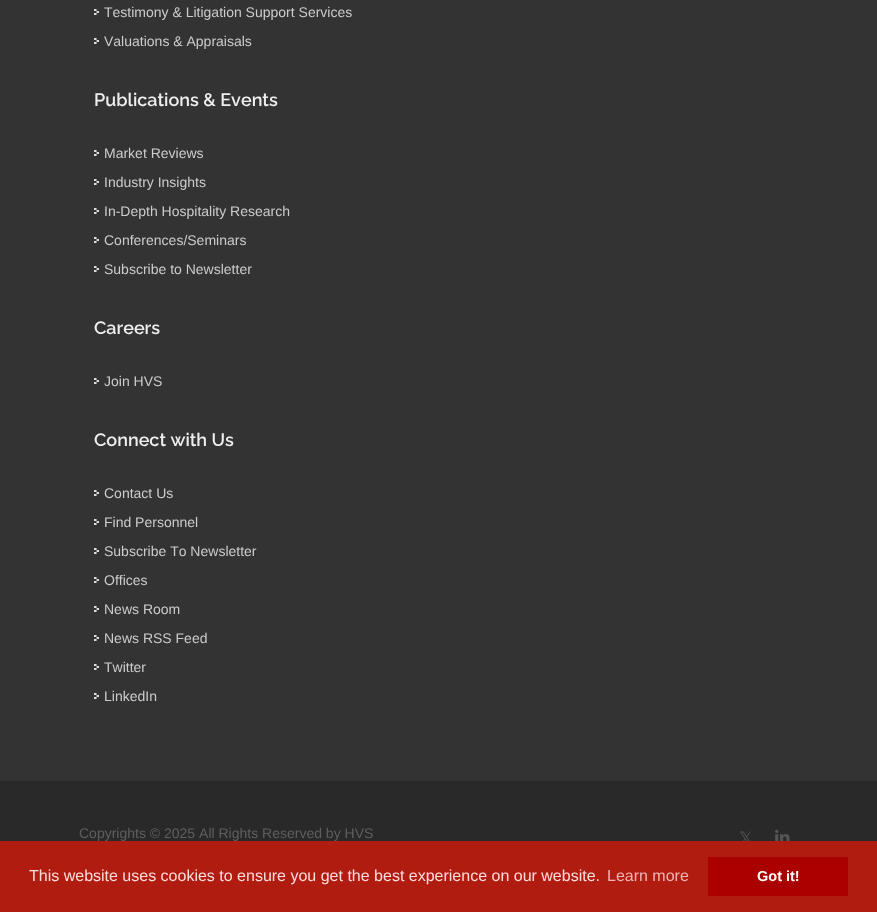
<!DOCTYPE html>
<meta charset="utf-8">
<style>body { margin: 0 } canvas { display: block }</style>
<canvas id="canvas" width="877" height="912"></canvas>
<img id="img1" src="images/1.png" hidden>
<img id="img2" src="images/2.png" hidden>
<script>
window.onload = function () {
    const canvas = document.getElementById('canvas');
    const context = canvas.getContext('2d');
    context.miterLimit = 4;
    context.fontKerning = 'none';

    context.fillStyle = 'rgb(51, 51, 51)';
    context.fillRect(0, 0, 877, 912);
    context.drawImage(document.getElementById('img1'), 94, 9, 5, 6);
    context.drawImage(document.getElementById('img1'), 94, 38, 5, 6);
    context.drawImage(document.getElementById('img1'), 94, 150, 5, 6);
    context.drawImage(document.getElementById('img1'), 94, 179, 5, 6);
    context.drawImage(document.getElementById('img1'), 94, 208, 5, 6);
    context.drawImage(document.getElementById('img1'), 94, 237, 5, 6);
    context.drawImage(document.getElementById('img1'), 94, 266, 5, 6);
    context.drawImage(document.getElementById('img1'), 94, 378, 5, 6);
    context.drawImage(document.getElementById('img1'), 94, 490, 5, 6);
    context.drawImage(document.getElementById('img1'), 94, 519, 5, 6);
    context.drawImage(document.getElementById('img1'), 94, 548, 5, 6);
    context.drawImage(document.getElementById('img1'), 94, 577, 5, 6);
    context.drawImage(document.getElementById('img1'), 94, 606, 5, 6);
    context.drawImage(document.getElementById('img1'), 94, 635, 5, 6);
    context.drawImage(document.getElementById('img1'), 94, 664, 5, 6);
    context.drawImage(document.getElementById('img1'), 94, 693, 5, 6);
    context.fillStyle = 'rgb(41, 41, 41)';
    context.fillRect(0, 781, 877, 60);
    context.drawImage(document.getElementById('img2'), 775, 829, 15, 12);
    context.font = '14px Liberation Sans';
    context.fillStyle = 'rgb(204, 204, 204)';
    context.fillText('Testimony & Litigation Support Services', 104, 17);
    context.fillText('Valuations & Appraisals', 104, 46);
    context.font = '600 18px Raleway';
    context.fillStyle = 'rgb(238, 238, 238)';
    context.fillText('Publications & Events', 94, 106);
    context.font = '14px Liberation Sans';
    context.fillStyle = 'rgb(204, 204, 204)';
    context.fillText('Market Reviews', 104, 158);
    context.fillText('Industry Insights', 104, 187);
    context.fillText('In-Depth Hospitality Research', 104, 216);
    context.fillText('Conferences/Seminars', 104, 245);
    context.fillText('Subscribe to Newsletter', 104, 274);
    context.font = '600 18px Raleway';
    context.fillStyle = 'rgb(238, 238, 238)';
    context.fillText('Careers', 94, 334);
    context.font = '14px Liberation Sans';
    context.fillStyle = 'rgb(204, 204, 204)';
    context.fillText('Join HVS', 104, 386);
    context.font = '600 18px Raleway';
    context.fillStyle = 'rgb(238, 238, 238)';
    context.fillText('Connect with Us', 94, 446);
    context.font = '14px Liberation Sans';
    context.fillStyle = 'rgb(204, 204, 204)';
    context.fillText('Contact Us', 104, 498);
    context.fillText('Find Personnel', 104, 527);
    context.fillText('Subscribe To Newsletter', 104, 556);
    context.fillText('Offices', 104, 585);
    context.fillText('News Room', 104, 614);
    context.fillText('News RSS Feed', 104, 643);
    context.fillText('Twitter', 104, 672);
    context.fillText('LinkedIn', 104, 701);
    context.fillStyle = 'rgb(95, 95, 95)';
    context.fillText('Copyrights © 2025 All Rights Reserved by HVS', 79, 838);
    context.font = '17px DejaVu Sans';
    context.fillStyle = 'rgb(85, 85, 85)';
    context.fillText('𝕏', 739, 844);
    context.fillStyle = 'rgb(177, 28, 17)';
    context.fillRect(0, 841, 877, 71);
    context.font = '16px Liberation Sans';
    context.fillStyle = 'rgb(255, 221, 221)';
    context.fillText('This website uses cookies to ensure you get the best experience on our website.', 29, 881);
    context.fillStyle = 'rgb(239, 182, 180)';
    context.fillText('Learn more', 607, 881);
    context.fillStyle = 'rgb(170, 0, 0)';
    context.fillRect(708, 857, 140, 39);
    context.font = 'bold 14.5px Liberation Sans';
    context.fillStyle = 'rgb(255, 255, 255)';
    context.fillText('Got it!', 757, 881);
};
</script>
